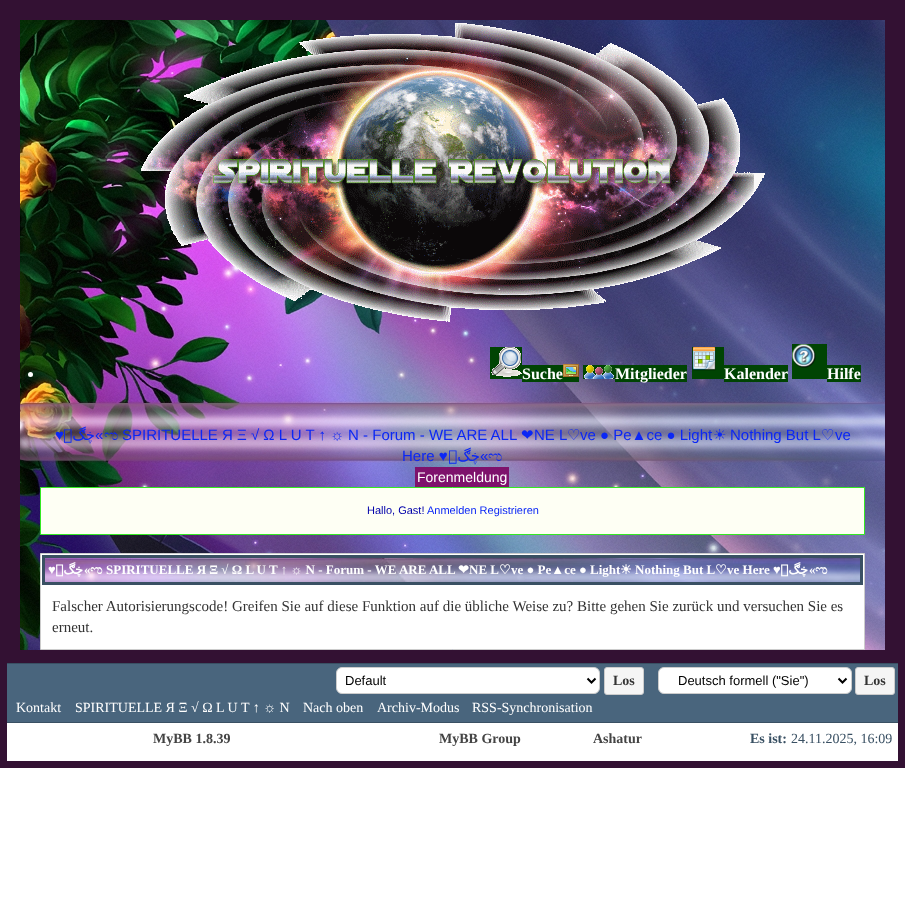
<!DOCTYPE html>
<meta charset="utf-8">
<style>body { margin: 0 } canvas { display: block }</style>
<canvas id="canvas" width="905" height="923"></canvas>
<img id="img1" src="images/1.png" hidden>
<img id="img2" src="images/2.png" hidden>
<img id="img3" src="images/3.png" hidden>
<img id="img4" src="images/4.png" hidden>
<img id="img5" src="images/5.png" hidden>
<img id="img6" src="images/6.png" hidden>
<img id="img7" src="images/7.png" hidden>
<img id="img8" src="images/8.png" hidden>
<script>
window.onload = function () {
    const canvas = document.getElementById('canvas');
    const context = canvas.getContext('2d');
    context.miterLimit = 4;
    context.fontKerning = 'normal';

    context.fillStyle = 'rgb(255, 255, 255)';
    context.fillRect(0, 0, 905, 923);
    context.strokeStyle = 'rgb(51, 17, 51)';
    context.lineWidth = 7;
    context.strokeRect(3.5, 3.5, 898, 761);
    context.drawImage(document.getElementById('img1'), 20, 20, 865, 630);
    context.lineWidth = 13;
    context.strokeRect(13.5, 13.5, 878, 643);
    context.drawImage(document.getElementById('img2'), 141, 23, 624, 299);
    context.beginPath();
    context.arc(30.5, 374.5, 2.5, 0, 2 * Math.PI);
    context.fill();
    context.fillStyle = 'rgb(0, 68, 3)';
    context.fillRect(490, 347, 32, 32);
    context.drawImage(document.getElementById('img3'), 491, 347, 31, 30);
    context.fillRect(522, 365, 41, 17);
    context.drawImage(document.getElementById('img4'), 563, 364, 16, 13);
    context.fillRect(583, 365, 32, 14);
    context.drawImage(document.getElementById('img5'), 584, 365, 30, 14);
    context.fillRect(615, 365, 72, 17);
    context.fillRect(692, 347, 32, 32);
    context.drawImage(document.getElementById('img6'), 692, 347, 24, 24);
    context.fillRect(724, 365, 64, 17);
    context.fillRect(792, 344, 35, 35);
    context.drawImage(document.getElementById('img7'), 792, 344, 24, 24);
    context.fillRect(827, 365, 34, 17);
    context.fillRect(563, 377, 16, 5);
    context.fillStyle = 'rgb(126, 18, 108)';
    context.fillRect(415, 467, 94, 20);
    context.fillStyle = 'rgb(254, 255, 244)';
    context.beginPath();
    context.rect(40.5, 487.5, 824, 47);
    context.fill();
    context.strokeStyle = 'rgb(52, 233, 35)';
    context.lineWidth = 1;
    context.stroke();
    context.fillStyle = 'rgb(255, 255, 255)';
    context.beginPath();
    context.rect(40.5, 553.5, 824, 96);
    context.fill();
    context.strokeStyle = 'rgb(204, 204, 204)';
    context.stroke();
    context.drawImage(document.getElementById('img8'), 45, 558, 815, 24);
    context.strokeStyle = 'rgb(57, 80, 99)';
    context.lineWidth = 3;
    context.strokeRect(43.5, 556.5, 818, 27);
    context.fillStyle = 'rgb(73, 101, 125)';
    context.fillRect(7, 664, 891, 58);
    context.fillStyle = 'rgb(57, 80, 99)';
    context.fillRect(7, 663, 891, 1);
    context.fillRect(7, 722, 891, 1);
    context.fillStyle = 'rgb(255, 255, 255)';
    context.beginPath();
    context.roundRect(336.5, 667.5, 263, 26, 5.5);
    context.fill();
    context.strokeStyle = 'rgb(204, 204, 204)';
    context.lineWidth = 1;
    context.stroke();
    context.beginPath();
    context.moveTo(587.5, 678.5);
    context.lineTo(591.5, 682.5);
    context.lineTo(595.5, 678.5);
    context.strokeStyle = 'rgb(0, 0, 0)';
    context.lineWidth = 2;
    context.stroke();
    context.fillStyle = 'rgb(245, 245, 245)';
    context.beginPath();
    context.roundRect(604.5, 667.5, 39, 27, 2.5);
    context.fill();
    context.strokeStyle = 'rgb(204, 204, 204)';
    context.lineWidth = 1;
    context.stroke();
    context.fillStyle = 'rgb(255, 255, 255)';
    context.beginPath();
    context.roundRect(658.5, 667.5, 193, 26, 5.5);
    context.fill();
    context.stroke();
    context.beginPath();
    context.moveTo(838.5, 678.5);
    context.lineTo(842.5, 682.5);
    context.lineTo(846.5, 678.5);
    context.strokeStyle = 'rgb(0, 0, 0)';
    context.lineWidth = 2;
    context.stroke();
    context.fillStyle = 'rgb(245, 245, 245)';
    context.beginPath();
    context.roundRect(855.5, 667.5, 39, 27, 2.5);
    context.fill();
    context.strokeStyle = 'rgb(204, 204, 204)';
    context.lineWidth = 1;
    context.stroke();
    context.font = 'bold 16px Liberation Serif';
    context.fillStyle = 'rgb(255, 255, 255)';
    context.fillText('Suche', 522, 379);
    context.fillText('Mitglieder', 615, 379);
    context.fillText('Kalender', 724, 379);
    context.fillText('Hilfe', 827, 379);
    context.font = '15px Liberation Sans';
    context.fillStyle = 'rgb(11, 39, 245)';
    context.fillText('♥', 55, 440);
    context.direction = 'rtl';
    context.font = '15px DejaVu Sans';
    context.fillText('ڿڰۣ', 95, 440);
    context.direction = 'ltr';
    context.font = '15px Liberation Sans';
    context.fillText('«', 95, 440);
    context.font = '15px FreeSerif';
    context.fillText('ಌ', 104, 440);
    context.font = '15px Liberation Sans';
    context.fillText('SPIRITUELLE Я Ξ √ Ω L U T ↑ ☼ N - Forum - WE ARE ALL', 122, 440);
    context.font = '15px DejaVu Sans';
    context.fillText('❤', 521, 440);
    context.font = '15px Liberation Sans';
    context.fillText('NE L', 534, 440);
    context.font = '15px DejaVu Sans';
    context.fillText('♡', 567, 440);
    context.font = '15px Liberation Sans';
    context.fillText('ve ● Pe▲ce ● Light', 580, 440);
    context.font = '15px DejaVu Sans';
    context.fillText('☀', 713, 440);
    context.font = '15px Liberation Sans';
    context.fillText('Nothing But L', 730, 440);
    context.font = '15px DejaVu Sans';
    context.fillText('♡', 821, 440);
    context.font = '15px Liberation Sans';
    context.fillText('ve', 835, 440);
    context.fillText('Here ♥', 402, 461);
    context.direction = 'rtl';
    context.font = '15px DejaVu Sans';
    context.fillText('ڿڰۣ', 480, 461);
    context.direction = 'ltr';
    context.font = '15px Liberation Sans';
    context.fillText('«', 480, 461);
    context.font = '15px FreeSerif';
    context.fillText('ಌ', 488, 461);
    context.font = '14px Liberation Sans';
    context.fillStyle = 'rgb(255, 255, 255)';
    context.fillText('Forenmeldung', 417, 482);
    context.font = '11px Liberation Sans';
    context.fillStyle = 'rgb(0, 0, 170)';
    context.fillText('Hallo, Gast!', 367, 514);
    context.fillStyle = 'rgb(11, 39, 245)';
    context.fillText('Anmelden Registrieren', 427, 514);
    context.font = 'bold 13px Liberation Serif';
    context.fillStyle = 'rgb(255, 255, 255)';
    context.fillText('♥', 48, 574);
    context.direction = 'rtl';
    context.font = 'bold 13px DejaVu Sans';
    context.fillText('ڿڰۣ', 83, 574);
    context.direction = 'ltr';
    context.font = 'bold 13px Liberation Serif';
    context.fillText('«', 84, 574);
    context.font = 'bold 13px FreeSerif';
    context.fillText('ಌ', 90, 574);
    context.font = 'bold 13px Liberation Serif';
    context.fillText('SPIRITUELLE Я Ξ √ Ω L U T ↑ ☼ N - Forum - WE ARE ALL', 106, 574);
    context.font = 'bold 13px DejaVu Sans';
    context.fillText('❤', 458, 574);
    context.font = 'bold 13px Liberation Serif';
    context.fillText('NE L', 469, 574);
    context.font = 'bold 13px DejaVu Sans';
    context.fillText('♡', 499, 574);
    context.font = 'bold 13px Liberation Serif';
    context.fillText('ve ● Pe▲ce ● Light', 511, 574);
    context.font = 'bold 13px DejaVu Sans';
    context.fillText('☀', 620, 574);
    context.font = 'bold 13px Liberation Serif';
    context.fillText('Nothing But L', 635, 574);
    context.font = 'bold 13px DejaVu Sans';
    context.fillText('♡', 715, 574);
    context.font = 'bold 13px Liberation Serif';
    context.fillText('ve Here ♥', 727, 574);
    context.direction = 'rtl';
    context.font = 'bold 13px DejaVu Sans';
    context.fillText('ڿڰۣ', 808, 574);
    context.direction = 'ltr';
    context.font = 'bold 13px Liberation Serif';
    context.fillText('«', 809, 574);
    context.font = 'bold 13px FreeSerif';
    context.fillText('ಌ', 815, 574);
    context.font = '15px Liberation Serif';
    context.fillStyle = 'rgb(51, 51, 51)';
    context.fillText('Falscher Autorisierungscode! Greifen Sie auf diese Funktion auf die übliche Weise zu? Bitte gehen Sie zurück und versuchen Sie es', 52, 611);
    context.fillText('erneut.', 52, 632);
    context.font = '13px Liberation Sans';
    context.fillStyle = 'rgb(0, 0, 0)';
    context.fillText('Default', 345, 685);
    context.font = 'bold 14px Liberation Serif';
    context.fillStyle = 'rgb(51, 51, 51)';
    context.fillText('Los', 613, 685);
    context.font = '13px Liberation Sans';
    context.fillStyle = 'rgb(0, 0, 0)';
    context.fillText('Deutsch formell ("Sie")', 678, 685);
    context.font = 'bold 14px Liberation Serif';
    context.fillStyle = 'rgb(51, 51, 51)';
    context.fillText('Los', 864, 685);
    context.font = '14px Liberation Serif';
    context.fillStyle = 'rgb(255, 255, 255)';
    context.fillText('Kontakt', 16, 712);
    context.fillText('SPIRITUELLE Я Ξ √ Ω L U T ↑ ☼ N', 75, 712);
    context.fillText('Nach oben', 303, 712);
    context.fillText('Archiv-Modus', 377, 712);
    context.fillText('RSS-Synchronisation', 472, 712);
    context.font = 'bold 14px Liberation Serif';
    context.fillStyle = 'rgb(68, 68, 68)';
    context.fillText('MyBB 1.8.39', 153, 743);
    context.fillText('MyBB Group', 439, 743);
    context.fillText('Ashatur', 593, 743);
    context.fillStyle = 'rgb(57, 80, 99)';
    context.fillText('Es ist:', 750, 743);
    context.font = '14px Liberation Serif';
    context.fillText('24.11.2025, 16:09', 791, 743);
};
</script>
